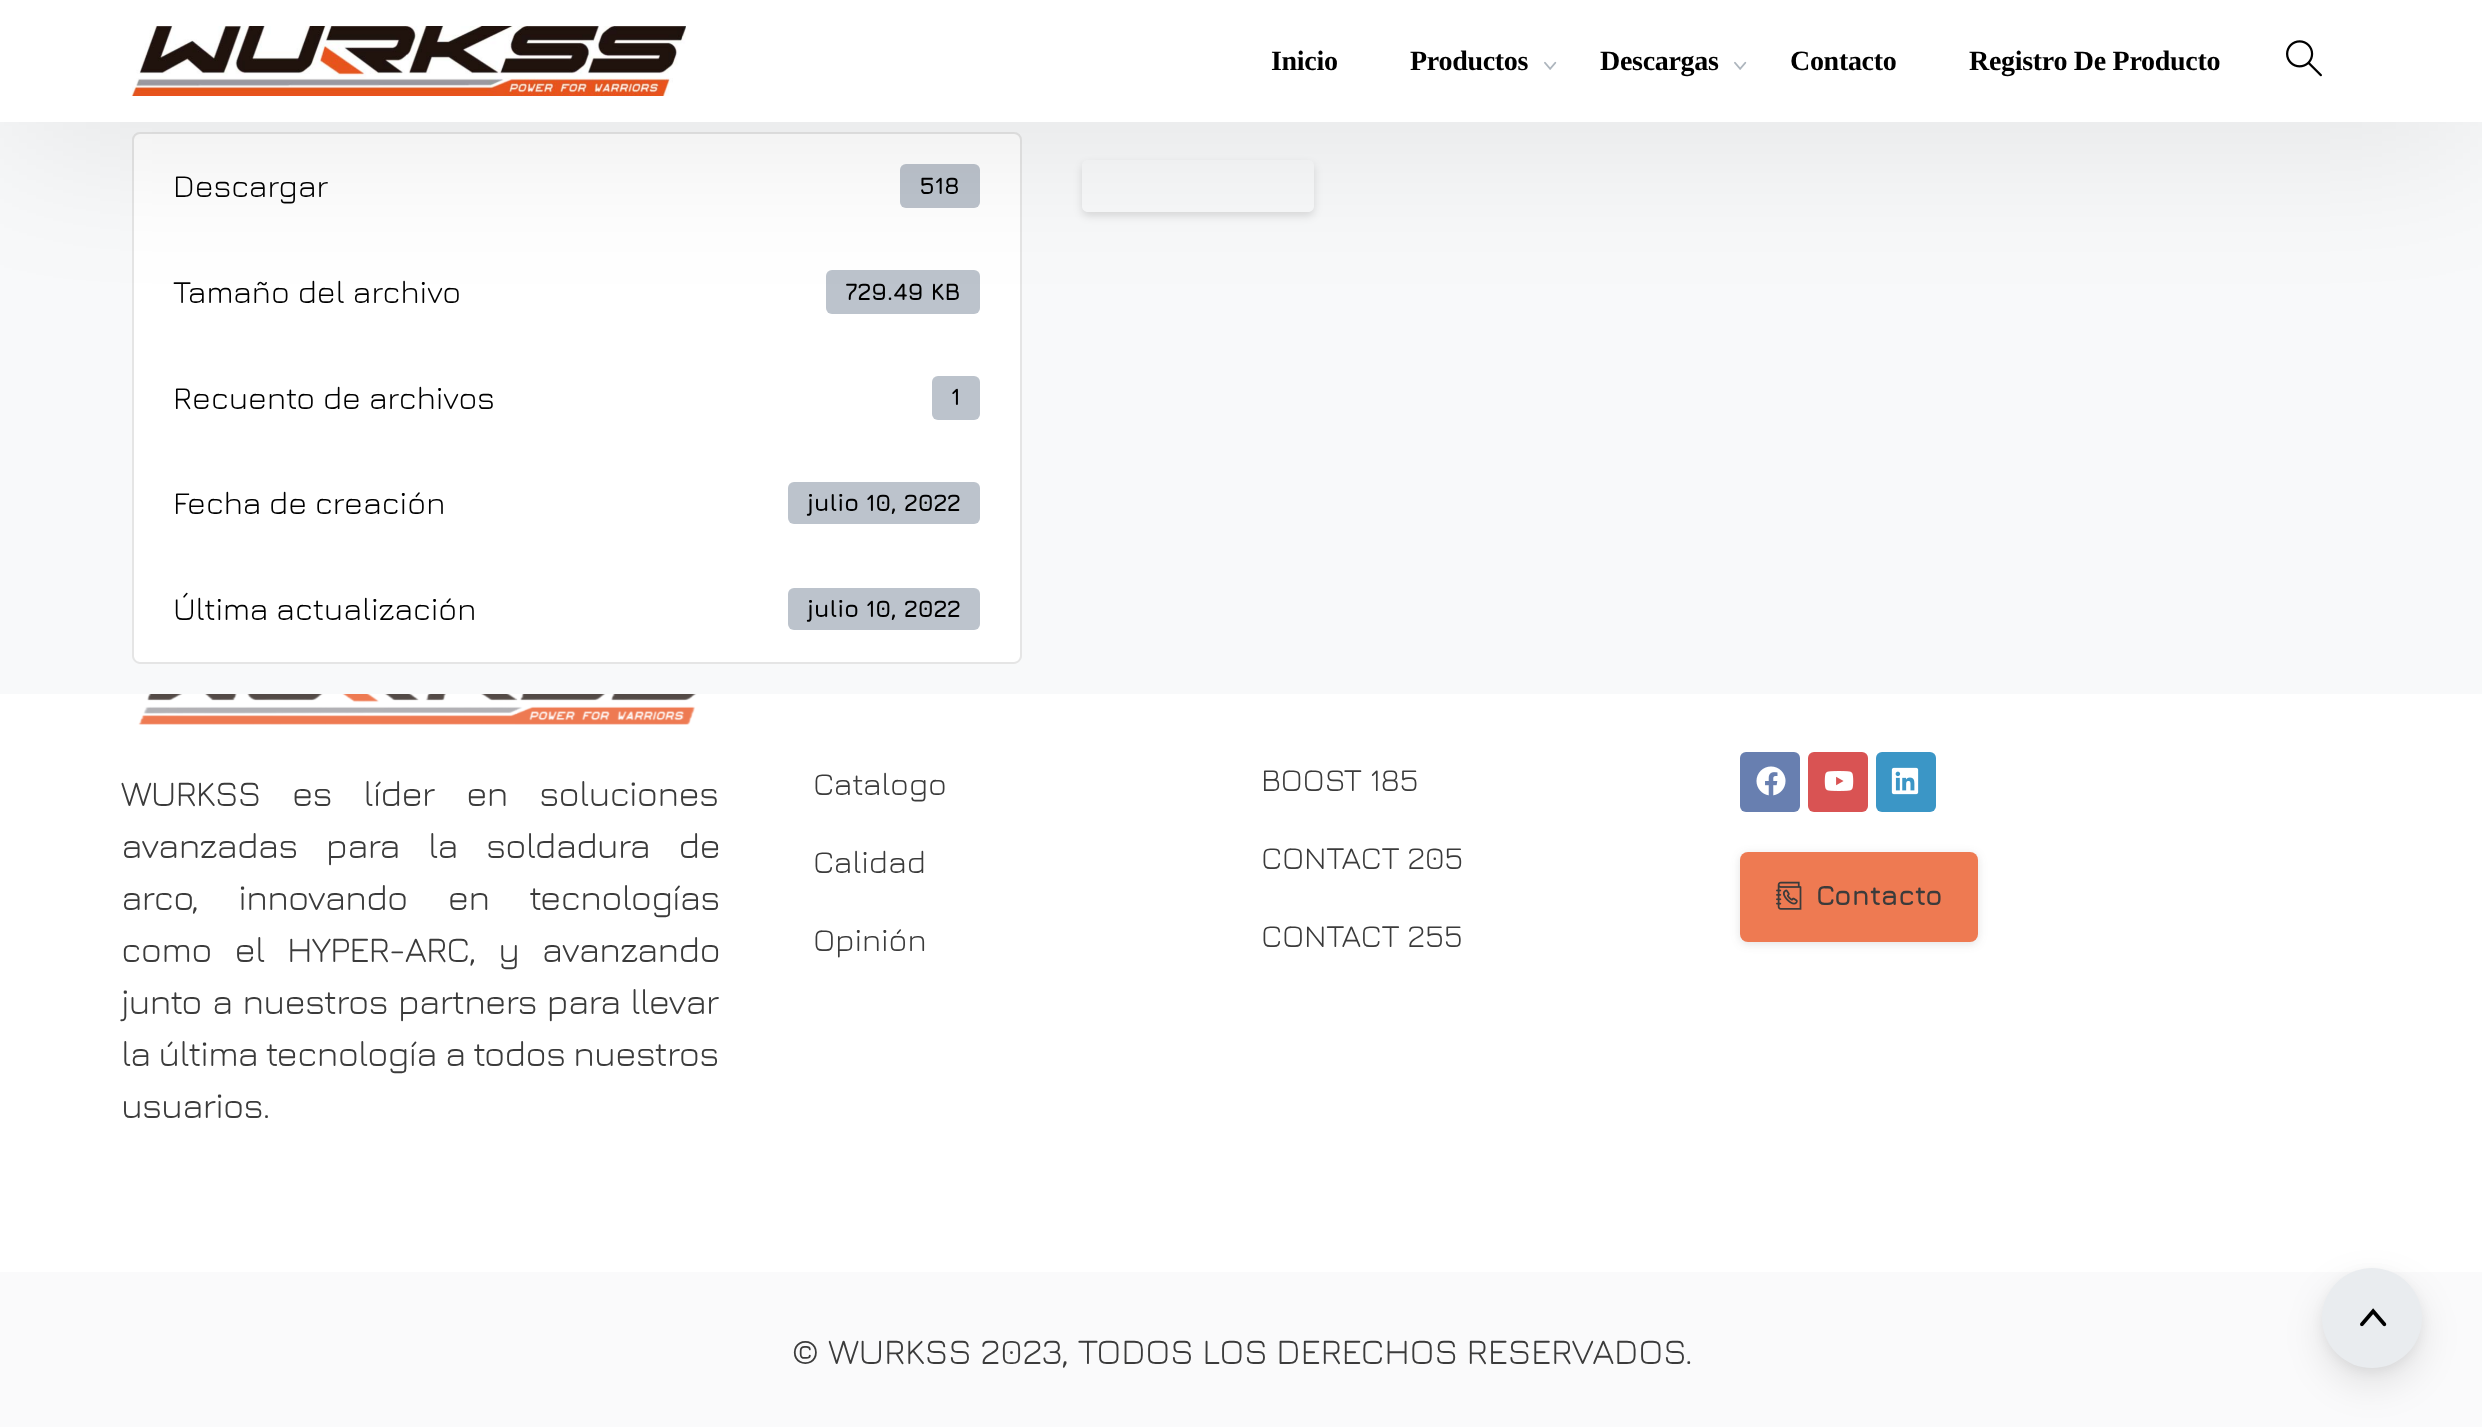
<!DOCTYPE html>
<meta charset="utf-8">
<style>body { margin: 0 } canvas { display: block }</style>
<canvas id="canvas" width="2482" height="1427"></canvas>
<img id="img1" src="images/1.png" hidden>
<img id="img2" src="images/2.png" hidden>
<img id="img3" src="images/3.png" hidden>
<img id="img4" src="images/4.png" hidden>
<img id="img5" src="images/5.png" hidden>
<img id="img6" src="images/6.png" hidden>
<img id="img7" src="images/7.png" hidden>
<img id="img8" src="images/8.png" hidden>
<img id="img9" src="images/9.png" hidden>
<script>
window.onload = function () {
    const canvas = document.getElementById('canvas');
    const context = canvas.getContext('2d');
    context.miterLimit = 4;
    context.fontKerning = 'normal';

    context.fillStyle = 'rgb(255, 255, 255)';
    context.fillRect(0, 0, 2482, 1427);
    context.fillStyle = 'rgb(248, 249, 250)';
    context.fillRect(0, 122, 2482, 572);
    context.fillStyle = 'rgb(255, 255, 255)';
    context.beginPath();
    context.roundRect(133, 133, 888, 108, [7, 7, 0, 0]);
    context.fill();
    context.strokeStyle = 'rgb(229, 229, 229)';
    context.lineWidth = 2;
    context.stroke();
    context.fillStyle = 'rgb(188, 195, 204)';
    context.beginPath();
    context.roundRect(900, 164, 80, 44, 6);
    context.fill();
    context.fillStyle = 'rgb(255, 255, 255)';
    context.fillRect(134, 240, 886, 316);
    context.fillStyle = 'rgb(229, 229, 229)';
    context.fillRect(1020, 240, 2, 318);
    context.fillRect(132, 240, 2, 318);
    context.fillStyle = 'rgb(188, 195, 204)';
    context.beginPath();
    context.roundRect(826, 270, 154, 44, 6);
    context.fill();
    context.fillStyle = 'rgba(0, 0, 0, 0.1)';
    context.filter = 'blur(80px)';
    context.beginPath();
    context.rect(0, 10, 2482, 122);
    context.fill();
    context.filter = 'none';
    context.fillStyle = 'rgb(255, 255, 255)';
    context.fillRect(0, 0, 2482, 122);
    context.drawImage(document.getElementById('img1'), 131, 26, 555, 70);
    context.drawImage(document.getElementById('img2'), 1544, 61, 13, 9);
    context.drawImage(document.getElementById('img2'), 1734, 61, 13, 9);
    context.drawImage(document.getElementById('img3'), 2286, 40, 36, 37);
    context.fillStyle = 'rgb(188, 195, 204)';
    context.beginPath();
    context.roundRect(932, 376, 48, 44, 6);
    context.fill();
    context.beginPath();
    context.roundRect(788, 482, 192, 42, 6);
    context.fill();
    context.fillStyle = 'rgb(255, 255, 255)';
    context.beginPath();
    context.roundRect(134, 556, 886, 106, [0, 0, 6, 6]);
    context.fill();
    context.fillStyle = 'rgb(229, 229, 229)';
    context.beginPath();
    context.moveTo(132, 556);
    context.lineTo(1022, 556);
    context.lineTo(1022, 656);
    context.bezierCurveTo(1022, 660, 1018, 664, 1014, 664);
    context.lineTo(140, 664);
    context.bezierCurveTo(136, 664, 132, 660, 132, 656);
    context.closePath();
    context.moveTo(134, 556);
    context.lineTo(1020, 556);
    context.lineTo(1020, 656);
    context.bezierCurveTo(1020, 659, 1017, 662, 1014, 662);
    context.lineTo(140, 662);
    context.bezierCurveTo(137, 662, 134, 659, 134, 656);
    context.closePath();
    context.fill('evenodd');
    context.fillStyle = 'rgb(188, 195, 204)';
    context.beginPath();
    context.roundRect(788, 588, 192, 42, 6);
    context.fill();
    context.save();
    context.beginPath();
    context.moveTo(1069, 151);
    context.lineTo(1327, 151);
    context.lineTo(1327, 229);
    context.lineTo(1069, 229);
    context.closePath();
    context.moveTo(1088, 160);
    context.lineTo(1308, 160);
    context.bezierCurveTo(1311.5, 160, 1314, 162.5, 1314, 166);
    context.lineTo(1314, 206);
    context.bezierCurveTo(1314, 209.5, 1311.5, 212, 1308, 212);
    context.lineTo(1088, 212);
    context.bezierCurveTo(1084.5, 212, 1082, 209.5, 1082, 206);
    context.lineTo(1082, 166);
    context.bezierCurveTo(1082, 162.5, 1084.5, 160, 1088, 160);
    context.closePath();
    context.clip('evenodd');
    context.fillStyle = 'rgba(0, 0, 0, 0.12)';
    context.filter = 'blur(4px)';
    context.beginPath();
    context.roundRect(1082, 164, 232, 52, 6);
    context.fill();
    context.filter = 'none';
    context.restore();
    context.drawImage(document.getElementById('img4'), 138, 694, 559, 31);
    context.fillStyle = 'rgb(104, 127, 176)';
    context.beginPath();
    context.roundRect(1740, 752, 60, 60, 6);
    context.fill();
    context.drawImage(document.getElementById('img5'), 1756, 766, 30, 30);
    context.fillStyle = 'rgb(217, 83, 83)';
    context.beginPath();
    context.roundRect(1808, 752, 60, 60, 6);
    context.fill();
    context.drawImage(document.getElementById('img6'), 1824, 771, 30, 20);
    context.fillStyle = 'rgb(59, 150, 198)';
    context.beginPath();
    context.roundRect(1876, 752, 60, 60, 6);
    context.fill();
    context.drawImage(document.getElementById('img7'), 1891, 767, 28, 28);
    context.fillStyle = 'rgba(59, 59, 59, 0.15)';
    context.filter = 'blur(5px)';
    context.beginPath();
    context.roundRect(1740, 854, 238, 90, 8);
    context.fill();
    context.filter = 'none';
    context.fillStyle = 'rgb(238, 122, 82)';
    context.beginPath();
    context.roundRect(1740, 852, 238, 90, 8);
    context.fill();
    context.drawImage(document.getElementById('img8'), 1776, 881, 26, 29);
    context.fillStyle = 'rgb(250, 250, 251)';
    context.fillRect(0, 1272, 2482, 155);
    context.fillStyle = 'rgba(0, 0, 0, 0.1)';
    context.filter = 'blur(19px)';
    context.beginPath();
    context.roundRect(2322, 1284, 100, 100, 50);
    context.fill();
    context.filter = 'none';
    context.fillStyle = 'rgba(0, 0, 0, 0.05)';
    context.filter = 'blur(6px)';
    context.beginPath();
    context.roundRect(2322, 1272, 100, 100, 50);
    context.fill();
    context.filter = 'none';
    context.fillStyle = 'rgb(233, 236, 239)';
    context.beginPath();
    context.arc(2372, 1318, 50, 0, 2 * Math.PI);
    context.fill();
    context.drawImage(document.getElementById('img9'), 2360, 1308, 27, 19);
    context.letterSpacing = '-0.3px';
    context.font = 'bold 28px Liberation Serif';
    context.fillStyle = 'rgb(0, 0, 0)';
    context.fillText('Inicio', 1271, 70);
    context.fillText('Productos', 1410, 70);
    context.fillText('Descargas', 1600, 70);
    context.fillText('Contacto', 1790, 70);
    context.fillText('Registro De Producto', 1969, 70);
    context.font = '32px Jura';
    context.fillText('Descargar', 173, 197);
    context.font = 'bold 24px Jura';
    context.fillText('518', 919, 194);
    context.font = '32px Jura';
    context.fillText('Tamaño del archivo', 173, 303);
    context.font = 'bold 24px Jura';
    context.fillText('729.49 KB', 845, 300);
    context.font = '32px Jura';
    context.fillText('Recuento de archivos', 173, 409);
    context.font = 'bold 24px Jura';
    context.fillText('1', 951, 405);
    context.font = '32px Jura';
    context.fillText('Fecha de creación', 173, 514);
    context.font = 'bold 24px Jura';
    context.fillText('julio 10, 2022', 807, 511);
    context.font = '32px Jura';
    context.fillText('Última actualización', 173, 620);
    context.font = 'bold 24px Jura';
    context.fillText('julio 10, 2022', 807, 617);
    context.letterSpacing = '-1px';
    context.wordSpacing = '23.5px';
    context.font = '36px Jura';
    context.fillStyle = 'rgb(59, 59, 59)';
    context.fillText('WURKSS es líder en soluciones', 121, 806);
    context.wordSpacing = '20.5px';
    context.fillText('avanzadas para la soldadura de', 121, 858);
    context.wordSpacing = '32px';
    context.fillText('arco, innovando en tecnologías', 121, 910);
    context.wordSpacing = '14.5px';
    context.fillText('como el HYPER-ARC, y avanzando', 121, 962);
    context.wordSpacing = '2px';
    context.fillText('junto a nuestros partners para llevar', 121, 1014);
    context.wordSpacing = '0px';
    context.fillText('la última tecnología a todos nuestros', 121, 1066);
    context.fillText('usuarios.', 121, 1118);
    context.letterSpacing = '-0.3px';
    context.font = '32px Jura';
    context.fillText('Catalogo', 813, 795);
    context.fillText('Calidad', 813, 873);
    context.fillText('Opinión', 813, 951);
    context.fillText('BOOST 185', 1261, 791);
    context.fillText('CONTACT 205', 1261, 869);
    context.fillText('CONTACT 255', 1261, 947);
    context.font = 'bold 28px Jura';
    context.fillText('Contacto', 1816, 905);
    context.font = '36px Jura';
    context.fillText('© WURKSS 2023, TODOS LOS DERECHOS RESERVADOS.', 791, 1364);
};
</script>
